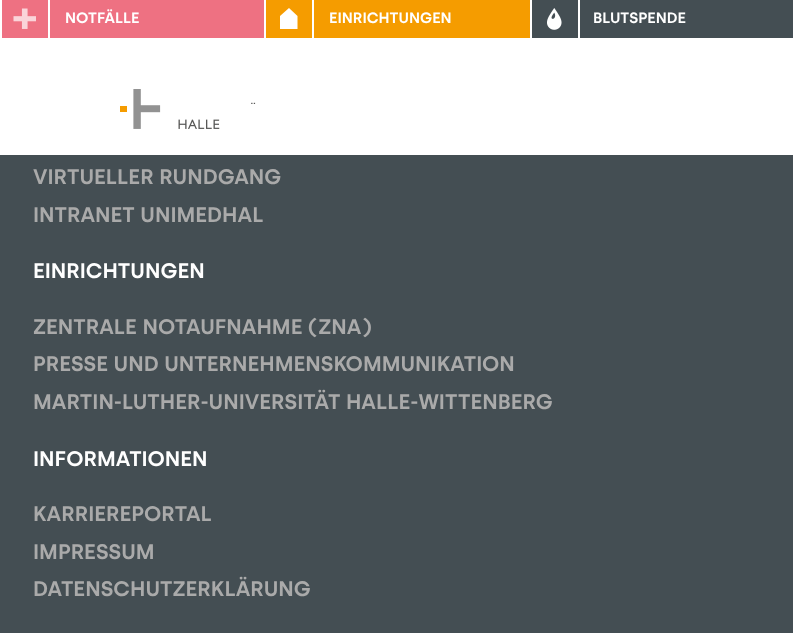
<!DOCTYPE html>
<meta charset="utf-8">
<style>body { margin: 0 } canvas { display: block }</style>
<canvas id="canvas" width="793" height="633"></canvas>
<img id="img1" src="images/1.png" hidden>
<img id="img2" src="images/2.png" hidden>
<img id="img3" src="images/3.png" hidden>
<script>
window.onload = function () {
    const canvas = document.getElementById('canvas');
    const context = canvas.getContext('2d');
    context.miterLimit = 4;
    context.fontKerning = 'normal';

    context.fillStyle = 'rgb(68, 78, 83)';
    context.fillRect(0, 0, 793, 633);
    context.fillStyle = 'rgb(255, 255, 255)';
    context.fillRect(0, 38, 793, 117);
    context.fillStyle = 'rgb(238, 113, 130)';
    context.fillRect(2, 0, 262, 38);
    context.fillStyle = 'rgb(255, 255, 255)';
    context.fillRect(48, 0, 2, 38);
    context.fillRect(0, 0, 2, 38);
    context.drawImage(document.getElementById('img1'), 13, 8, 23, 21);
    context.fillStyle = 'rgb(245, 156, 0)';
    context.fillRect(266, 0, 264, 38);
    context.fillStyle = 'rgb(255, 255, 255)';
    context.fillRect(312, 0, 2, 38);
    context.fillRect(264, 0, 2, 38);
    context.beginPath();
    context.moveTo(297.5, 29);
    context.lineTo(297.5, 16);
    context.lineTo(289, 8);
    context.lineTo(280, 16);
    context.lineTo(280, 29);
    context.closePath();
    context.fill();
    context.fillRect(578, 0, 2, 38);
    context.fillRect(530, 0, 2, 38);
    context.drawImage(document.getElementById('img2'), 547, 8, 15, 22);
    context.drawImage(document.getElementById('img3'), 120, 89, 136, 40);
    context.font = '600 15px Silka';
    context.fillText('NOTFÄLLE', 65, 23);
    context.fillText('EINRICHTUNGEN', 329, 23);
    context.fillText('BLUTSPENDE', 593, 23);
    context.font = '600 21px Silka';
    context.fillStyle = 'rgb(170, 170, 170)';
    context.fillText('VIRTUELLER RUNDGANG', 33, 184);
    context.fillText('INTRANET UNIMEDHAL', 33, 222);
    context.fillStyle = 'rgb(255, 255, 255)';
    context.fillText('EINRICHTUNGEN', 33, 278);
    context.fillStyle = 'rgb(170, 170, 170)';
    context.fillText('ZENTRALE NOTAUFNAHME (ZNA)', 33, 334);
    context.fillText('PRESSE UND UNTERNEHMENSKOMMUNIKATION', 33, 371);
    context.fillText('MARTIN-LUTHER-UNIVERSITÄT HALLE-WITTENBERG', 33, 409);
    context.fillStyle = 'rgb(255, 255, 255)';
    context.fillText('INFORMATIONEN', 33, 466);
    context.fillStyle = 'rgb(170, 170, 170)';
    context.fillText('KARRIEREPORTAL', 33, 521);
    context.fillText('IMPRESSUM', 33, 559);
    context.fillText('DATENSCHUTZERKLÄRUNG', 33, 596);
};
</script>
